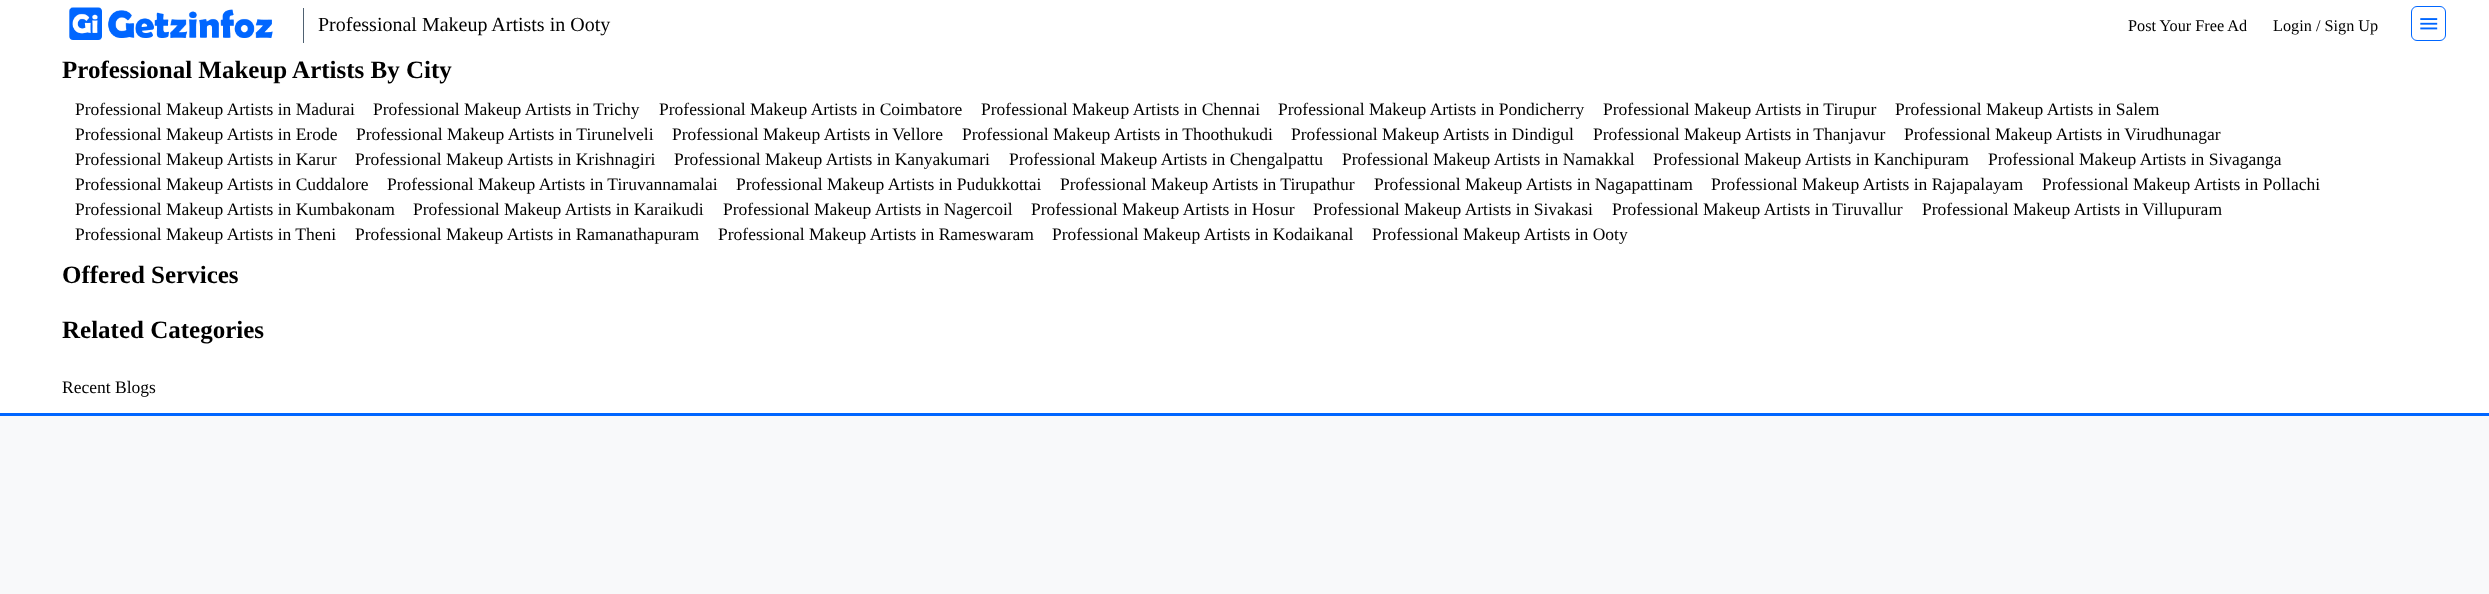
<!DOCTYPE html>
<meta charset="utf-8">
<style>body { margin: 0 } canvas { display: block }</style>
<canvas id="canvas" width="2489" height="594"></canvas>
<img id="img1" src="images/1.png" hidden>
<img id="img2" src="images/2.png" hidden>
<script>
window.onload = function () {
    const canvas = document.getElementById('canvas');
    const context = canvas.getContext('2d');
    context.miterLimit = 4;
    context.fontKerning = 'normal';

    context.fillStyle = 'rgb(248, 249, 250)';
    context.fillRect(0, 0, 2489, 594);
    context.fillStyle = 'rgb(255, 255, 255)';
    context.fillRect(0, 0, 2489, 413);
    context.fillStyle = 'rgb(0, 102, 255)';
    context.fillRect(0, 413, 2489, 3);
    context.drawImage(document.getElementById('img1'), 69, 7, 204, 33);
    context.fillStyle = 'rgb(79, 97, 113)';
    context.fillRect(303, 8, 1, 35);
    context.beginPath();
    context.roundRect(2411.5, 6.5, 34, 34, 5.5);
    context.strokeStyle = 'rgb(0, 102, 255)';
    context.stroke();
    context.drawImage(document.getElementById('img2'), 2420, 18, 18, 12);
    context.font = '20px Liberation Serif';
    context.fillStyle = 'rgb(0, 0, 0)';
    context.fillText('Professional Makeup Artists in Ooty', 318, 31);
    context.font = '16.25px Liberation Serif';
    context.fillText('Post Your Free Ad', 2128, 31);
    context.fillText('Login / Sign Up', 2273, 31);
    context.font = 'bold 25px Liberation Serif';
    context.fillText('Professional Makeup Artists By City', 62, 78);
    context.font = '17.5px Liberation Serif';
    context.fillText('Professional Makeup Artists in Madurai', 75, 115);
    context.fillText('Professional Makeup Artists in Trichy', 373, 115);
    context.fillText('Professional Makeup Artists in Coimbatore', 659, 115);
    context.fillText('Professional Makeup Artists in Chennai', 981, 115);
    context.fillText('Professional Makeup Artists in Pondicherry', 1278, 115);
    context.fillText('Professional Makeup Artists in Tirupur', 1603, 115);
    context.fillText('Professional Makeup Artists in Salem', 1895, 115);
    context.fillText('Professional Makeup Artists in Erode', 75, 140);
    context.fillText('Professional Makeup Artists in Tirunelveli', 356, 140);
    context.fillText('Professional Makeup Artists in Vellore', 672, 140);
    context.fillText('Professional Makeup Artists in Thoothukudi', 962, 140);
    context.fillText('Professional Makeup Artists in Dindigul', 1291, 140);
    context.fillText('Professional Makeup Artists in Thanjavur', 1593, 140);
    context.fillText('Professional Makeup Artists in Virudhunagar', 1904, 140);
    context.fillText('Professional Makeup Artists in Karur', 75, 165);
    context.fillText('Professional Makeup Artists in Krishnagiri', 355, 165);
    context.fillText('Professional Makeup Artists in Kanyakumari', 674, 165);
    context.fillText('Professional Makeup Artists in Chengalpattu', 1009, 165);
    context.fillText('Professional Makeup Artists in Namakkal', 1342, 165);
    context.fillText('Professional Makeup Artists in Kanchipuram', 1653, 165);
    context.fillText('Professional Makeup Artists in Sivaganga', 1988, 165);
    context.fillText('Professional Makeup Artists in Cuddalore', 75, 190);
    context.fillText('Professional Makeup Artists in Tiruvannamalai', 387, 190);
    context.fillText('Professional Makeup Artists in Pudukkottai', 736, 190);
    context.fillText('Professional Makeup Artists in Tirupathur', 1060, 190);
    context.fillText('Professional Makeup Artists in Nagapattinam', 1374, 190);
    context.fillText('Professional Makeup Artists in Rajapalayam', 1711, 190);
    context.fillText('Professional Makeup Artists in Pollachi', 2042, 190);
    context.fillText('Professional Makeup Artists in Kumbakonam', 75, 215);
    context.fillText('Professional Makeup Artists in Karaikudi', 413, 215);
    context.fillText('Professional Makeup Artists in Nagercoil', 723, 215);
    context.fillText('Professional Makeup Artists in Hosur', 1031, 215);
    context.fillText('Professional Makeup Artists in Sivakasi', 1313, 215);
    context.fillText('Professional Makeup Artists in Tiruvallur', 1612, 215);
    context.fillText('Professional Makeup Artists in Villupuram', 1922, 215);
    context.fillText('Professional Makeup Artists in Theni', 75, 240);
    context.fillText('Professional Makeup Artists in Ramanathapuram', 355, 240);
    context.fillText('Professional Makeup Artists in Rameswaram', 718, 240);
    context.fillText('Professional Makeup Artists in Kodaikanal', 1052, 240);
    context.fillText('Professional Makeup Artists in Ooty', 1372, 240);
    context.font = 'bold 25px Liberation Serif';
    context.fillText('Offered Services', 62, 283);
    context.fillText('Related Categories', 62, 338);
    context.font = '17.5px Liberation Serif';
    context.fillText('Recent Blogs', 62, 393);
};
</script>
